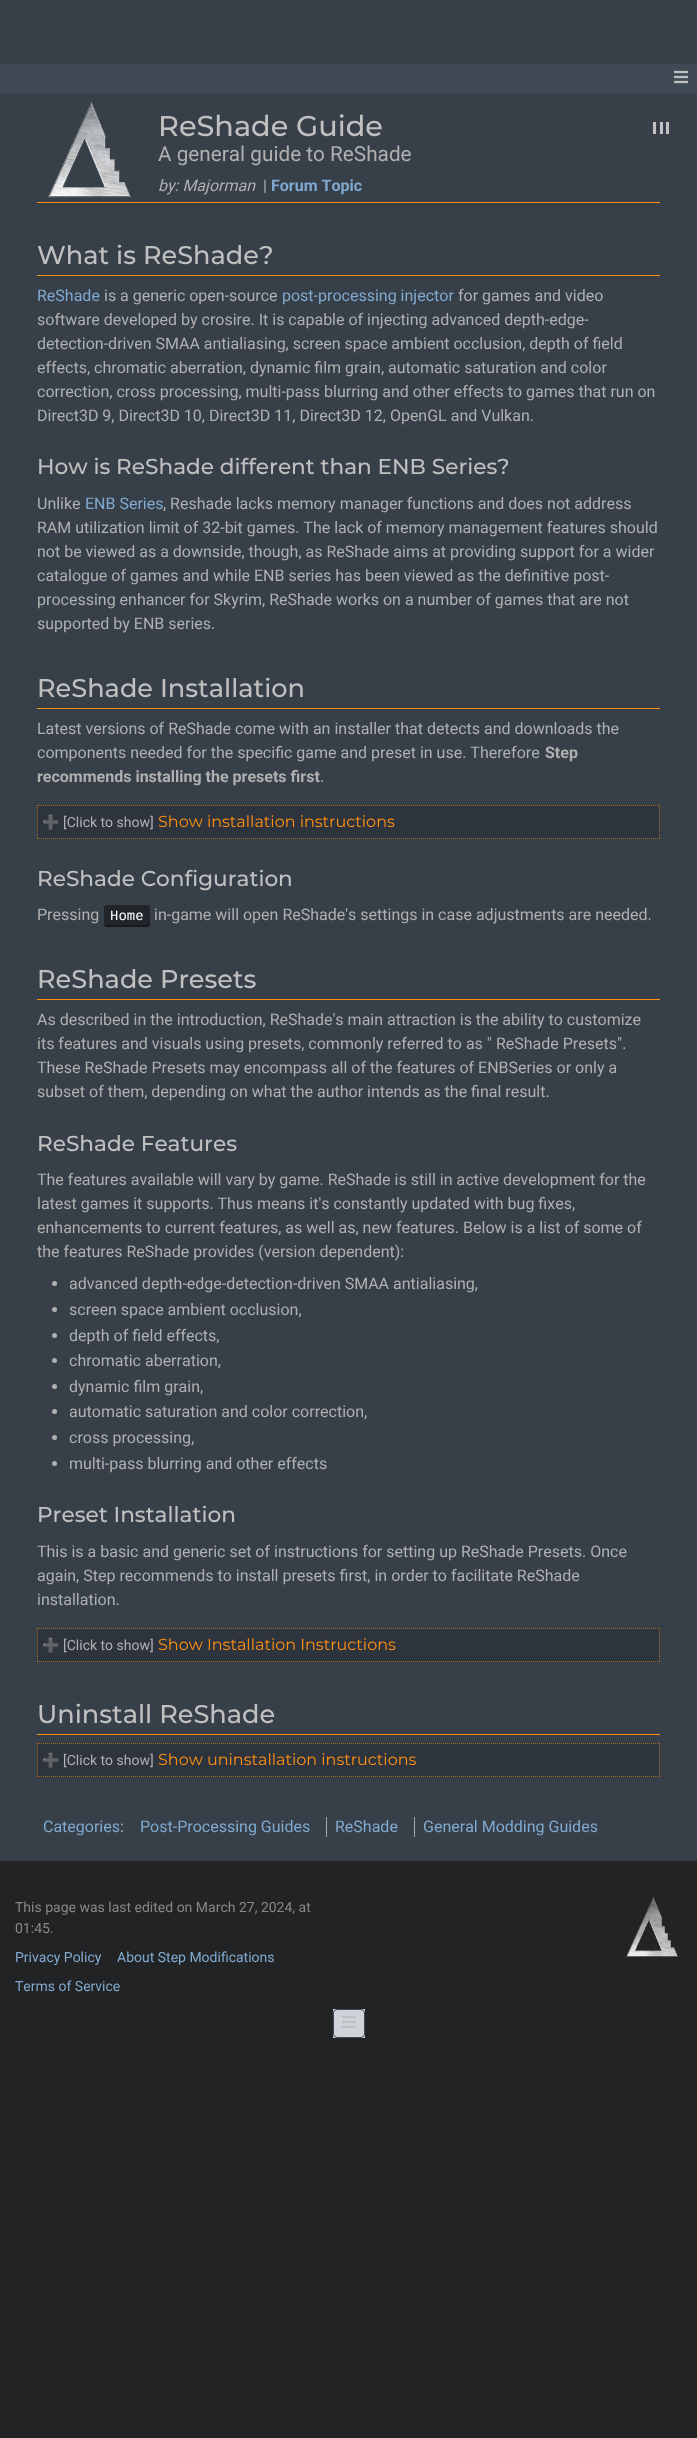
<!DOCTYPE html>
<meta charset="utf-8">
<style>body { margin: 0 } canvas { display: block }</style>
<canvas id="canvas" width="697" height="2438"></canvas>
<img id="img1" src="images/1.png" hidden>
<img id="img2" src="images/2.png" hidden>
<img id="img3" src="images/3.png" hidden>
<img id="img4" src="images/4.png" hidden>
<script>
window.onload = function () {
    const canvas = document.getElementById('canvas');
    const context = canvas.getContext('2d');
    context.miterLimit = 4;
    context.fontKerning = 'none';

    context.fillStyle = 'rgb(34, 35, 36)';
    context.fillRect(0, 0, 697, 2438);
    context.fillStyle = 'rgb(55, 63, 73)';
    context.fillRect(0, 0, 697, 64);
    context.fillStyle = 'rgb(63, 74, 84)';
    context.fillRect(0, 64, 697, 29);
    context.drawImage(document.getElementById('img1'), 674, 70, 14, 14);
    context.fillStyle = 'rgb(55, 63, 73)';
    context.fillRect(0, 93, 697, 1768);
    context.fillStyle = 'rgb(255, 144, 18)';
    context.fillRect(37, 202, 623, 1);
    context.drawImage(document.getElementById('img2'), 48, 101, 83, 97);
    context.fillRect(37, 275, 623, 1);
    context.fillRect(37, 708, 623, 1);
    context.fillStyle = 'rgb(46, 52, 61)';
    context.fillRect(37, 805, 623, 34);
    context.beginPath();
    context.moveTo(37, 805.5);
    context.lineTo(660, 805.5);
    context.strokeStyle = 'rgb(171, 107, 35)';
    context.setLineDash([1, 1]);
    context.stroke();
    context.beginPath();
    context.moveTo(659.5, 805);
    context.lineTo(659.5, 839);
    context.strokeStyle = 'rgba(255, 144, 18, 0.6)';
    context.stroke();
    context.beginPath();
    context.moveTo(37, 838.5);
    context.lineTo(660, 838.5);
    context.strokeStyle = 'rgb(171, 107, 35)';
    context.stroke();
    context.beginPath();
    context.moveTo(37.5, 805);
    context.lineTo(37.5, 839);
    context.strokeStyle = 'rgba(255, 144, 18, 0.6)';
    context.stroke();
    context.fillStyle = 'rgb(33, 37, 41)';
    context.beginPath();
    context.roundRect(104, 905, 46, 22, 3);
    context.fill();
    context.fillStyle = 'rgba(0, 0, 0, 0.25)';
    context.beginPath();
    context.moveTo(104, 922);
    context.bezierCurveTo(104, 929, 107, 927, 114, 927);
    context.lineTo(140, 927);
    context.bezierCurveTo(147, 927, 150, 929, 150, 922);
    context.bezierCurveTo(150, 924, 149, 925, 147, 925);
    context.lineTo(107, 925);
    context.bezierCurveTo(105, 925, 104, 924, 104, 922);
    context.closePath();
    context.fill();
    context.fillStyle = 'rgb(255, 144, 18)';
    context.fillRect(37, 999, 623, 1);
    context.fillStyle = 'rgb(176, 176, 176)';
    context.beginPath();
    context.arc(54.5, 1283.5, 2.5, 0, 2 * Math.PI);
    context.fill();
    context.beginPath();
    context.arc(54.5, 1309.5, 2.5, 0, 2 * Math.PI);
    context.fill();
    context.beginPath();
    context.arc(54.5, 1335.5, 2.5, 0, 2 * Math.PI);
    context.fill();
    context.beginPath();
    context.arc(54.5, 1360.5, 2.5, 0, 2 * Math.PI);
    context.fill();
    context.beginPath();
    context.arc(54.5, 1386.5, 2.5, 0, 2 * Math.PI);
    context.fill();
    context.beginPath();
    context.arc(54.5, 1411.5, 2.5, 0, 2 * Math.PI);
    context.fill();
    context.beginPath();
    context.arc(54.5, 1437.5, 2.5, 0, 2 * Math.PI);
    context.fill();
    context.beginPath();
    context.arc(54.5, 1463.5, 2.5, 0, 2 * Math.PI);
    context.fill();
    context.fillStyle = 'rgb(46, 52, 61)';
    context.fillRect(37, 1628, 623, 34);
    context.beginPath();
    context.moveTo(37, 1628.5);
    context.lineTo(660, 1628.5);
    context.strokeStyle = 'rgb(171, 107, 35)';
    context.stroke();
    context.beginPath();
    context.moveTo(659.5, 1628);
    context.lineTo(659.5, 1662);
    context.strokeStyle = 'rgba(255, 144, 18, 0.6)';
    context.stroke();
    context.beginPath();
    context.moveTo(37, 1661.5);
    context.lineTo(660, 1661.5);
    context.strokeStyle = 'rgb(171, 107, 35)';
    context.stroke();
    context.beginPath();
    context.moveTo(37.5, 1628);
    context.lineTo(37.5, 1662);
    context.strokeStyle = 'rgba(255, 144, 18, 0.6)';
    context.stroke();
    context.fillStyle = 'rgb(255, 144, 18)';
    context.fillRect(37, 1734, 623, 1);
    context.fillStyle = 'rgb(46, 52, 61)';
    context.fillRect(37, 1743, 623, 34);
    context.beginPath();
    context.moveTo(37, 1743.5);
    context.lineTo(660, 1743.5);
    context.strokeStyle = 'rgb(171, 107, 35)';
    context.stroke();
    context.beginPath();
    context.moveTo(659.5, 1743);
    context.lineTo(659.5, 1777);
    context.strokeStyle = 'rgba(255, 144, 18, 0.6)';
    context.stroke();
    context.beginPath();
    context.moveTo(37, 1776.5);
    context.lineTo(660, 1776.5);
    context.strokeStyle = 'rgb(171, 107, 35)';
    context.stroke();
    context.beginPath();
    context.moveTo(37.5, 1743);
    context.lineTo(37.5, 1777);
    context.strokeStyle = 'rgba(255, 144, 18, 0.6)';
    context.stroke();
    context.fillStyle = 'rgb(192, 192, 192)';
    context.fillRect(660, 122, 3, 12);
    context.fillRect(653, 122, 3, 12);
    context.fillRect(666, 122, 3, 12);
    context.fillStyle = 'rgb(162, 169, 177)';
    context.fillRect(326, 1817, 1, 20);
    context.fillRect(414, 1817, 1, 20);
    context.drawImage(document.getElementById('img3'), 626, 1897, 52, 60);
    context.fillStyle = 'rgb(206, 212, 218)';
    context.fillRect(333, 2009, 32, 29);
    context.beginPath();
    context.roundRect(333.5, 2009.5, 31, 28, 3.5);
    context.strokeStyle = 'rgb(63, 74, 84)';
    context.setLineDash([]);
    context.stroke();
    context.drawImage(document.getElementById('img4'), 342, 2016, 14, 12);
    context.font = '500 28.75px Montserrat';
    context.fillStyle = 'rgb(192, 192, 192)';
    context.fillText('ReShade Guide', 158, 136);
    context.font = '20.75px Roboto';
    context.fillStyle = 'rgb(176, 176, 176)';
    context.fillText('A general guide to ReShade', 158, 161);
    context.font = 'italic 16px Roboto';
    context.fillText('by: Majorman', 158, 191);
    context.font = '16px Roboto';
    context.fillText('|', 263, 191);
    context.font = 'bold 16px Roboto';
    context.fillStyle = 'rgb(128, 170, 207)';
    context.fillText('Forum Topic', 271, 191);
    context.font = '500 25.6px Montserrat';
    context.fillStyle = 'rgb(192, 192, 192)';
    context.fillText('What is ReShade?', 37, 264);
    context.font = '16px Roboto';
    context.fillStyle = 'rgb(128, 170, 207)';
    context.fillText('ReShade', 37, 301);
    context.fillStyle = 'rgb(176, 176, 176)';
    context.fillText('is a generic open-source', 104, 301);
    context.fillStyle = 'rgb(128, 170, 207)';
    context.fillText('post-processing injector', 282, 301);
    context.fillStyle = 'rgb(176, 176, 176)';
    context.fillText('for games and video', 458, 301);
    context.fillText('software developed by crosire. It is capable of injecting advanced depth-edge-', 37, 325);
    context.fillText('detection-driven SMAA antialiasing, screen space ambient occlusion, depth of field', 37, 349);
    context.fillText('effects, chromatic aberration, dynamic film grain, automatic saturation and color', 37, 373);
    context.fillText('correction, cross processing, multi-pass blurring and other effects to games that run on', 37, 397);
    context.fillText('Direct3D 9, Direct3D 10, Direct3D 11, Direct3D 12, OpenGL and Vulkan.', 37, 421);
    context.font = '500 21.6px Montserrat';
    context.fillStyle = 'rgb(192, 192, 192)';
    context.fillText('How is ReShade different than ENB Series?', 37, 474);
    context.font = '16px Roboto';
    context.fillStyle = 'rgb(176, 176, 176)';
    context.fillText('Unlike', 37, 509);
    context.fillStyle = 'rgb(128, 170, 207)';
    context.fillText('ENB Series', 85, 509);
    context.fillStyle = 'rgb(176, 176, 176)';
    context.fillText(', Reshade lacks memory manager functions and does not address', 163, 509);
    context.fillText('RAM utilization limit of 32-bit games. The lack of memory management features should', 37, 533);
    context.fillText('not be viewed as a downside, though, as ReShade aims at providing support for a wider', 37, 557);
    context.fillText('catalogue of games and while ENB series has been viewed as the definitive post-', 37, 581);
    context.fillText('processing enhancer for Skyrim, ReShade works on a number of games that are not', 37, 605);
    context.fillText('supported by ENB series.', 37, 629);
    context.font = '500 25.6px Montserrat';
    context.fillStyle = 'rgb(192, 192, 192)';
    context.fillText('ReShade Installation', 37, 697);
    context.font = '16px Roboto';
    context.fillStyle = 'rgb(176, 176, 176)';
    context.fillText('Latest versions of ReShade come with an installer that detects and downloads the', 37, 734);
    context.fillText('components needed for the specific game and preset in use. Therefore', 37, 758);
    context.font = 'bold 16px Roboto';
    context.fillText('Step', 545, 758);
    context.fillText('recommends installing the presets first', 37, 782);
    context.font = '16px Roboto';
    context.fillText('.', 320, 782);
    context.font = '14px Noto Color Emoji';
    context.fillText('➕', 42, 827);
    context.font = '14px Roboto';
    context.fillText('[Click to show]', 63, 827);
    context.font = '16px Montserrat';
    context.fillStyle = 'rgb(255, 144, 18)';
    context.fillText('Show installation instructions', 158, 827);
    context.font = '500 21.6px Montserrat';
    context.fillStyle = 'rgb(192, 192, 192)';
    context.fillText('ReShade Configuration', 37, 886);
    context.font = '16px Roboto';
    context.fillStyle = 'rgb(176, 176, 176)';
    context.fillText('Pressing', 37, 920);
    context.font = '14px Liberation Mono';
    context.fillStyle = 'rgb(255, 255, 255)';
    context.fillText('Home', 110, 920);
    context.font = '16px Roboto';
    context.fillStyle = 'rgb(176, 176, 176)';
    context.fillText('in-game will open ReShade\'s settings in case adjustments are needed.', 154, 920);
    context.font = '500 25.6px Montserrat';
    context.fillStyle = 'rgb(192, 192, 192)';
    context.fillText('ReShade Presets', 37, 988);
    context.font = '16px Roboto';
    context.fillStyle = 'rgb(176, 176, 176)';
    context.fillText('As described in the introduction, ReShade\'s main attraction is the ability to customize', 37, 1025);
    context.fillText('its features and visuals using presets, commonly referred to as " ReShade Presets".', 37, 1049);
    context.fillText('These ReShade Presets may encompass all of the features of ENBSeries or only a', 37, 1073);
    context.fillText('subset of them, depending on what the author intends as the final result.', 37, 1097);
    context.font = '500 21.6px Montserrat';
    context.fillStyle = 'rgb(192, 192, 192)';
    context.fillText('ReShade Features', 37, 1151);
    context.font = '16px Roboto';
    context.fillStyle = 'rgb(176, 176, 176)';
    context.fillText('The features available will vary by game. ReShade is still in active development for the', 37, 1185);
    context.fillText('latest games it supports. Thus means it\'s constantly updated with bug fixes,', 37, 1209);
    context.fillText('enhancements to current features, as well as, new features. Below is a list of some of', 37, 1233);
    context.fillText('the features ReShade provides (version dependent):', 37, 1257);
    context.fillText('advanced depth-edge-detection-driven SMAA antialiasing,', 69, 1289);
    context.fillText('screen space ambient occlusion,', 69, 1315);
    context.fillText('depth of field effects,', 69, 1341);
    context.fillText('chromatic aberration,', 69, 1366);
    context.fillText('dynamic film grain,', 69, 1392);
    context.fillText('automatic saturation and color correction,', 69, 1417);
    context.fillText('cross processing,', 69, 1443);
    context.fillText('multi-pass blurring and other effects', 69, 1469);
    context.font = '500 21.6px Montserrat';
    context.fillStyle = 'rgb(192, 192, 192)';
    context.fillText('Preset Installation', 37, 1522);
    context.font = '16px Roboto';
    context.fillStyle = 'rgb(176, 176, 176)';
    context.fillText('This is a basic and generic set of instructions for setting up ReShade Presets. Once', 37, 1557);
    context.fillText('again, Step recommends to install presets first, in order to facilitate ReShade', 37, 1581);
    context.fillText('installation.', 37, 1605);
    context.font = '14px Noto Color Emoji';
    context.fillText('➕', 42, 1650);
    context.font = '14px Roboto';
    context.fillText('[Click to show]', 63, 1650);
    context.font = '16px Montserrat';
    context.fillStyle = 'rgb(255, 144, 18)';
    context.fillText('Show Installation Instructions', 158, 1650);
    context.font = '500 25.6px Montserrat';
    context.fillStyle = 'rgb(192, 192, 192)';
    context.fillText('Uninstall ReShade', 37, 1723);
    context.font = '14px Noto Color Emoji';
    context.fillStyle = 'rgb(176, 176, 176)';
    context.fillText('➕', 42, 1765);
    context.font = '14px Roboto';
    context.fillText('[Click to show]', 63, 1765);
    context.font = '16px Montserrat';
    context.fillStyle = 'rgb(255, 144, 18)';
    context.fillText('Show uninstallation instructions', 158, 1765);
    context.font = '16px Roboto';
    context.fillStyle = 'rgb(128, 170, 207)';
    context.fillText('Categories', 43, 1832);
    context.fillStyle = 'rgb(176, 176, 176)';
    context.fillText(':', 120, 1832);
    context.fillStyle = 'rgb(128, 170, 207)';
    context.fillText('Post-Processing Guides', 140, 1832);
    context.fillText('ReShade', 335, 1832);
    context.fillText('General Modding Guides', 423, 1832);
    context.font = '14px Roboto';
    context.fillStyle = 'rgb(136, 136, 136)';
    context.fillText('This page was last edited on March 27, 2024, at', 15, 1912);
    context.fillText('01:45.', 15, 1933);
    context.fillStyle = 'rgb(128, 170, 207)';
    context.fillText('Privacy Policy', 15, 1962);
    context.fillText('About Step Modifications', 117, 1962);
    context.fillText('Terms of Service', 15, 1991);
};
</script>
